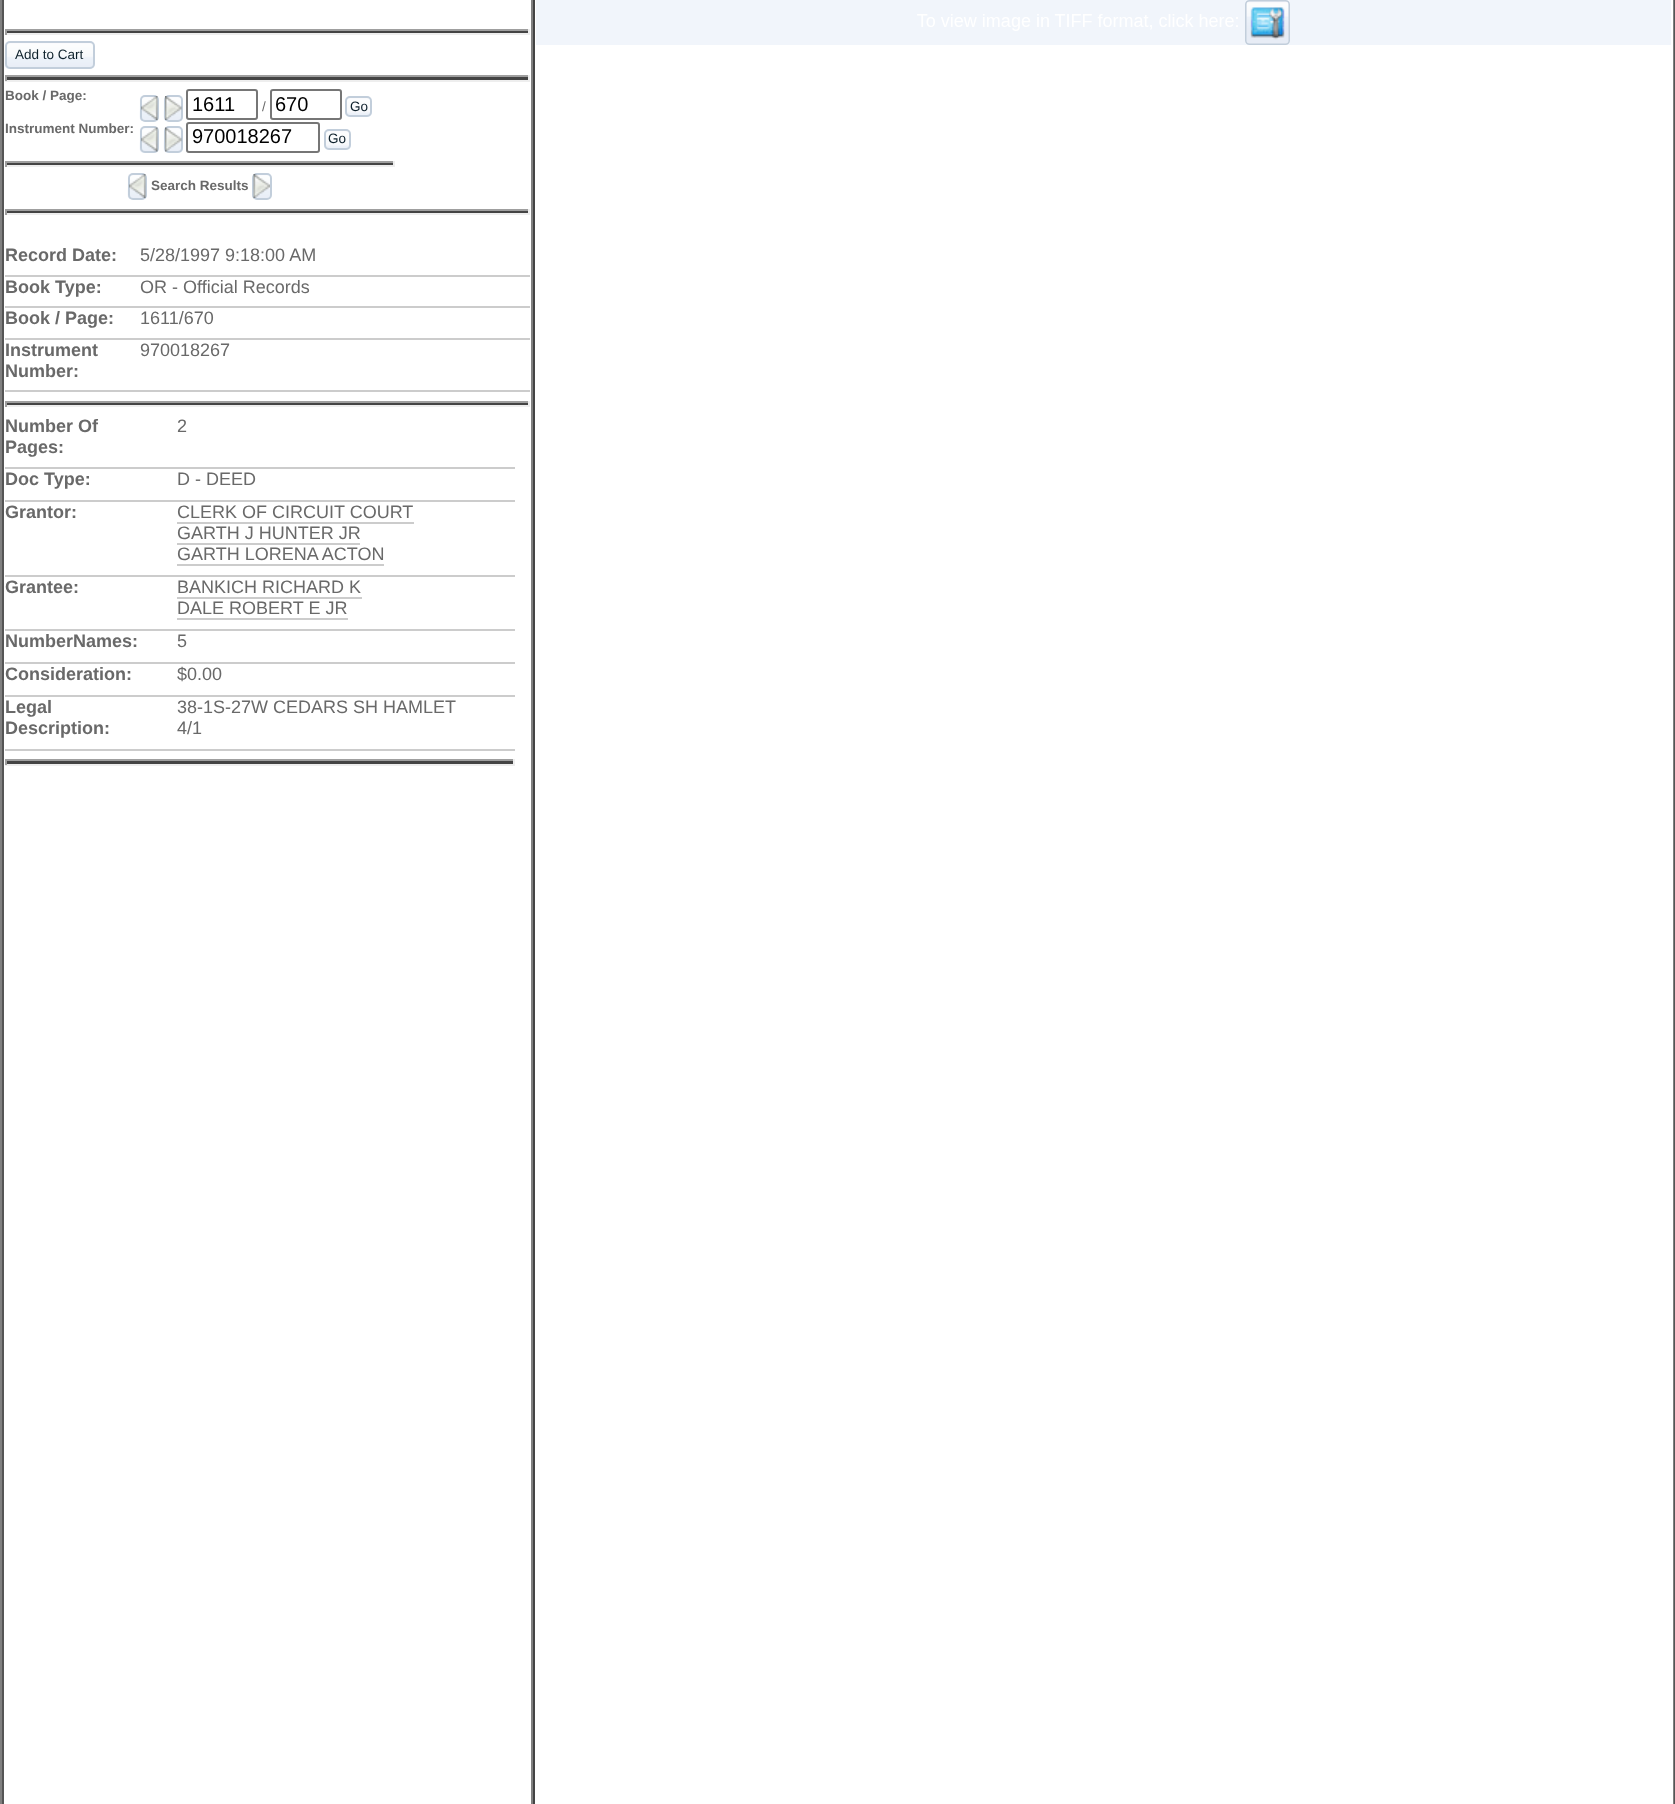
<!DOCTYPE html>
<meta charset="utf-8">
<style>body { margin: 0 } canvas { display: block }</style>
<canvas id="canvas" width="1675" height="1804"></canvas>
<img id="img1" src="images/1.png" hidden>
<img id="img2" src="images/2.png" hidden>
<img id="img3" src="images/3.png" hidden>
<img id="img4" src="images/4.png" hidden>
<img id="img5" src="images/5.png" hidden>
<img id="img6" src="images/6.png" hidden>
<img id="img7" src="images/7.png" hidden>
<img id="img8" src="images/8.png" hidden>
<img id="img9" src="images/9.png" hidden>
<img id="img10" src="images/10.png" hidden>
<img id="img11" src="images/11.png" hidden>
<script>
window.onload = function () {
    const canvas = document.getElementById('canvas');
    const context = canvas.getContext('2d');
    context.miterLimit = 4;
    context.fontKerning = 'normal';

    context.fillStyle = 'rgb(255, 255, 255)';
    context.fillRect(0, 0, 1675, 1804);
    context.fillStyle = 'rgb(85, 85, 85)';
    context.fillRect(1674, 0, 1, 1804);
    context.fillStyle = 'rgb(128, 128, 128)';
    context.fillRect(0, 0, 2, 1804);
    context.fillRect(531, 0, 2, 1804);
    context.fillStyle = 'rgb(85, 85, 85)';
    context.fillRect(2, 0, 2, 1804);
    context.fillStyle = 'rgb(68, 68, 68)';
    context.fillRect(5, 31, 525, 2);
    context.fillStyle = 'rgb(159, 159, 159)';
    context.fillRect(5, 29, 525, 2);
    context.fillStyle = 'rgb(238, 238, 238)';
    context.fillRect(528, 29, 2, 6);
    context.fillRect(5, 33, 525, 2);
    context.fillStyle = 'rgb(159, 159, 159)';
    context.fillRect(5, 29, 2, 6);
    context.drawImage(document.getElementById('img1'), 4, 42, 91, 27);
    context.beginPath();
    context.roundRect(6, 42, 88, 26, 4);
    context.strokeStyle = 'rgb(194, 206, 219)';
    context.lineWidth = 2;
    context.stroke();
    context.fillStyle = 'rgb(68, 68, 68)';
    context.fillRect(5, 77, 525, 3);
    context.fillStyle = 'rgb(159, 159, 159)';
    context.fillRect(5, 75, 525, 2);
    context.fillStyle = 'rgb(238, 238, 238)';
    context.fillRect(528, 75, 2, 6);
    context.fillRect(5, 80, 525, 2);
    context.fillStyle = 'rgb(159, 159, 159)';
    context.fillRect(5, 75, 2, 6);
    context.drawImage(document.getElementById('img2'), 139, 96, 20, 25);
    context.beginPath();
    context.roundRect(141, 96, 17, 25, 4);
    context.stroke();
    context.drawImage(document.getElementById('img3'), 141, 96, 17, 24);
    context.drawImage(document.getElementById('img2'), 163, 96, 20, 25);
    context.beginPath();
    context.roundRect(165, 96, 17, 25, 4);
    context.stroke();
    context.drawImage(document.getElementById('img4'), 165, 96, 17, 24);
    context.beginPath();
    context.roundRect(187, 90, 70, 29, 2);
    context.strokeStyle = 'rgb(118, 118, 118)';
    context.stroke();
    context.beginPath();
    context.roundRect(271, 90, 70, 29, 2);
    context.stroke();
    context.drawImage(document.getElementById('img5'), 345, 97, 27, 20);
    context.beginPath();
    context.roundRect(346, 97, 25, 19, 4);
    context.strokeStyle = 'rgb(194, 206, 219)';
    context.stroke();
    context.drawImage(document.getElementById('img6'), 139, 127, 20, 26);
    context.beginPath();
    context.roundRect(141, 127, 17, 25, 4);
    context.stroke();
    context.drawImage(document.getElementById('img7'), 141, 127, 17, 25);
    context.drawImage(document.getElementById('img6'), 163, 127, 20, 26);
    context.beginPath();
    context.roundRect(165, 127, 17, 25, 4);
    context.stroke();
    context.drawImage(document.getElementById('img8'), 165, 127, 17, 25);
    context.beginPath();
    context.roundRect(187, 123, 132, 29, 2);
    context.strokeStyle = 'rgb(118, 118, 118)';
    context.stroke();
    context.drawImage(document.getElementById('img5'), 324, 130, 27, 20);
    context.beginPath();
    context.roundRect(325, 130, 25, 19, 4);
    context.strokeStyle = 'rgb(194, 206, 219)';
    context.stroke();
    context.fillStyle = 'rgb(68, 68, 68)';
    context.fillRect(5, 163, 390, 2);
    context.fillStyle = 'rgb(159, 159, 159)';
    context.fillRect(5, 161, 390, 2);
    context.fillStyle = 'rgb(238, 238, 238)';
    context.fillRect(393, 161, 2, 6);
    context.fillRect(5, 165, 390, 2);
    context.fillStyle = 'rgb(159, 159, 159)';
    context.fillRect(5, 161, 2, 6);
    context.drawImage(document.getElementById('img2'), 127, 174, 20, 25);
    context.beginPath();
    context.roundRect(129, 174, 17, 25, 4);
    context.stroke();
    context.drawImage(document.getElementById('img3'), 129, 174, 17, 24);
    context.drawImage(document.getElementById('img9'), 252, 174, 20, 25);
    context.beginPath();
    context.roundRect(253, 174, 18, 25, 4);
    context.stroke();
    context.drawImage(document.getElementById('img10'), 253, 174, 17, 24);
    context.fillStyle = 'rgb(68, 68, 68)';
    context.fillRect(5, 211, 525, 2);
    context.fillStyle = 'rgb(159, 159, 159)';
    context.fillRect(5, 209, 525, 2);
    context.fillStyle = 'rgb(238, 238, 238)';
    context.fillRect(528, 209, 2, 6);
    context.fillRect(5, 213, 525, 2);
    context.fillStyle = 'rgb(159, 159, 159)';
    context.fillRect(5, 209, 2, 6);
    context.fillStyle = 'rgb(204, 204, 204)';
    context.fillRect(5, 275, 525, 2);
    context.fillRect(5, 306, 525, 2);
    context.fillRect(5, 338, 525, 2);
    context.fillRect(5, 390, 525, 2);
    context.fillStyle = 'rgb(68, 68, 68)';
    context.fillRect(5, 403, 525, 2);
    context.fillStyle = 'rgb(159, 159, 159)';
    context.fillRect(5, 401, 525, 2);
    context.fillStyle = 'rgb(238, 238, 238)';
    context.fillRect(528, 401, 2, 6);
    context.fillRect(5, 405, 525, 2);
    context.fillStyle = 'rgb(159, 159, 159)';
    context.fillRect(5, 401, 2, 6);
    context.fillStyle = 'rgb(204, 204, 204)';
    context.fillRect(5, 467, 510, 2);
    context.fillRect(5, 500, 510, 2);
    context.fillRect(5, 575, 510, 2);
    context.fillRect(177, 522, 237, 2);
    context.fillRect(177, 543, 183, 2);
    context.fillRect(177, 564, 207, 2);
    context.fillRect(5, 629, 510, 2);
    context.fillRect(177, 597, 185, 2);
    context.fillRect(177, 618, 171, 2);
    context.fillRect(5, 662, 510, 2);
    context.fillRect(5, 695, 510, 2);
    context.fillRect(5, 749, 510, 2);
    context.fillStyle = 'rgb(68, 68, 68)';
    context.fillRect(5, 761, 510, 3);
    context.fillStyle = 'rgb(159, 159, 159)';
    context.fillRect(5, 759, 510, 2);
    context.fillStyle = 'rgb(238, 238, 238)';
    context.fillRect(513, 759, 2, 6);
    context.fillRect(5, 764, 510, 2);
    context.fillStyle = 'rgb(159, 159, 159)';
    context.fillRect(5, 759, 2, 6);
    context.fillStyle = 'rgb(128, 128, 128)';
    context.fillRect(1673, 0, 1, 1804);
    context.fillStyle = 'rgb(68, 68, 68)';
    context.fillRect(533, 0, 2, 1804);
    context.drawImage(document.getElementById('img11'), 536, 0, 1135, 45);
    context.font = '13.5px Liberation Sans';
    context.fillStyle = 'rgb(13, 32, 43)';
    context.fillText('Add to Cart', 15, 59);
    context.font = 'bold 13.5px Liberation Sans';
    context.fillStyle = 'rgb(105, 105, 105)';
    context.fillText('Book / Page:', 5, 100);
    context.font = '20px Liberation Sans';
    context.fillStyle = 'rgb(0, 0, 0)';
    context.fillText('1611', 192, 111);
    context.font = '13.5px Liberation Sans';
    context.fillStyle = 'rgb(105, 105, 105)';
    context.fillText('/', 262, 111);
    context.font = '20px Liberation Sans';
    context.fillStyle = 'rgb(0, 0, 0)';
    context.fillText('670', 275, 111);
    context.font = '13.5px Liberation Sans';
    context.fillStyle = 'rgb(13, 32, 43)';
    context.fillText('Go', 350, 111);
    context.font = 'bold 13.5px Liberation Sans';
    context.fillStyle = 'rgb(105, 105, 105)';
    context.fillText('Instrument Number:', 5, 133);
    context.font = '20px Liberation Sans';
    context.fillStyle = 'rgb(0, 0, 0)';
    context.fillText('970018267', 192, 143);
    context.font = '13.5px Liberation Sans';
    context.fillStyle = 'rgb(13, 32, 43)';
    context.fillText('Go', 328, 143);
    context.font = 'bold 13.5px Liberation Sans';
    context.fillStyle = 'rgb(105, 105, 105)';
    context.fillText('Search Results', 151, 190);
    context.font = 'bold 18px Liberation Sans';
    context.fillText('Record Date:', 5, 261);
    context.font = '18px Liberation Sans';
    context.fillText('5/28/1997 9:18:00 AM', 140, 261);
    context.font = 'bold 18px Liberation Sans';
    context.fillText('Book Type:', 5, 293);
    context.font = '18px Liberation Sans';
    context.fillText('OR - Official Records', 140, 293);
    context.font = 'bold 18px Liberation Sans';
    context.fillText('Book / Page:', 5, 324);
    context.font = '18px Liberation Sans';
    context.fillText('1611/670', 140, 324);
    context.font = 'bold 18px Liberation Sans';
    context.fillText('Instrument', 5, 356);
    context.fillText('Number:', 5, 377);
    context.font = '18px Liberation Sans';
    context.fillText('970018267', 140, 356);
    context.font = 'bold 18px Liberation Sans';
    context.fillText('Number Of', 5, 432);
    context.fillText('Pages:', 5, 453);
    context.font = '18px Liberation Sans';
    context.fillText('2', 177, 432);
    context.font = 'bold 18px Liberation Sans';
    context.fillText('Doc Type:', 5, 485);
    context.font = '18px Liberation Sans';
    context.fillText('D - DEED', 177, 485);
    context.font = 'bold 18px Liberation Sans';
    context.fillText('Grantor:', 5, 518);
    context.font = '18px Liberation Sans';
    context.fillText('CLERK OF CIRCUIT COURT', 177, 518);
    context.fillText('GARTH J HUNTER JR', 177, 539);
    context.fillText('GARTH LORENA ACTON', 177, 560);
    context.font = 'bold 18px Liberation Sans';
    context.fillText('Grantee:', 5, 593);
    context.font = '18px Liberation Sans';
    context.fillText('BANKICH RICHARD K', 177, 593);
    context.fillText('DALE ROBERT E JR', 177, 614);
    context.font = 'bold 18px Liberation Sans';
    context.fillText('NumberNames:', 5, 647);
    context.font = '18px Liberation Sans';
    context.fillText('5', 177, 647);
    context.font = 'bold 18px Liberation Sans';
    context.fillText('Consideration:', 5, 680);
    context.font = '18px Liberation Sans';
    context.fillText('$0.00', 177, 680);
    context.font = 'bold 18px Liberation Sans';
    context.fillText('Legal', 5, 713);
    context.fillText('Description:', 5, 734);
    context.font = '18px Liberation Sans';
    context.fillText('38-1S-27W CEDARS SH HAMLET', 177, 713);
    context.fillText('4/1', 177, 734);
};
</script>
